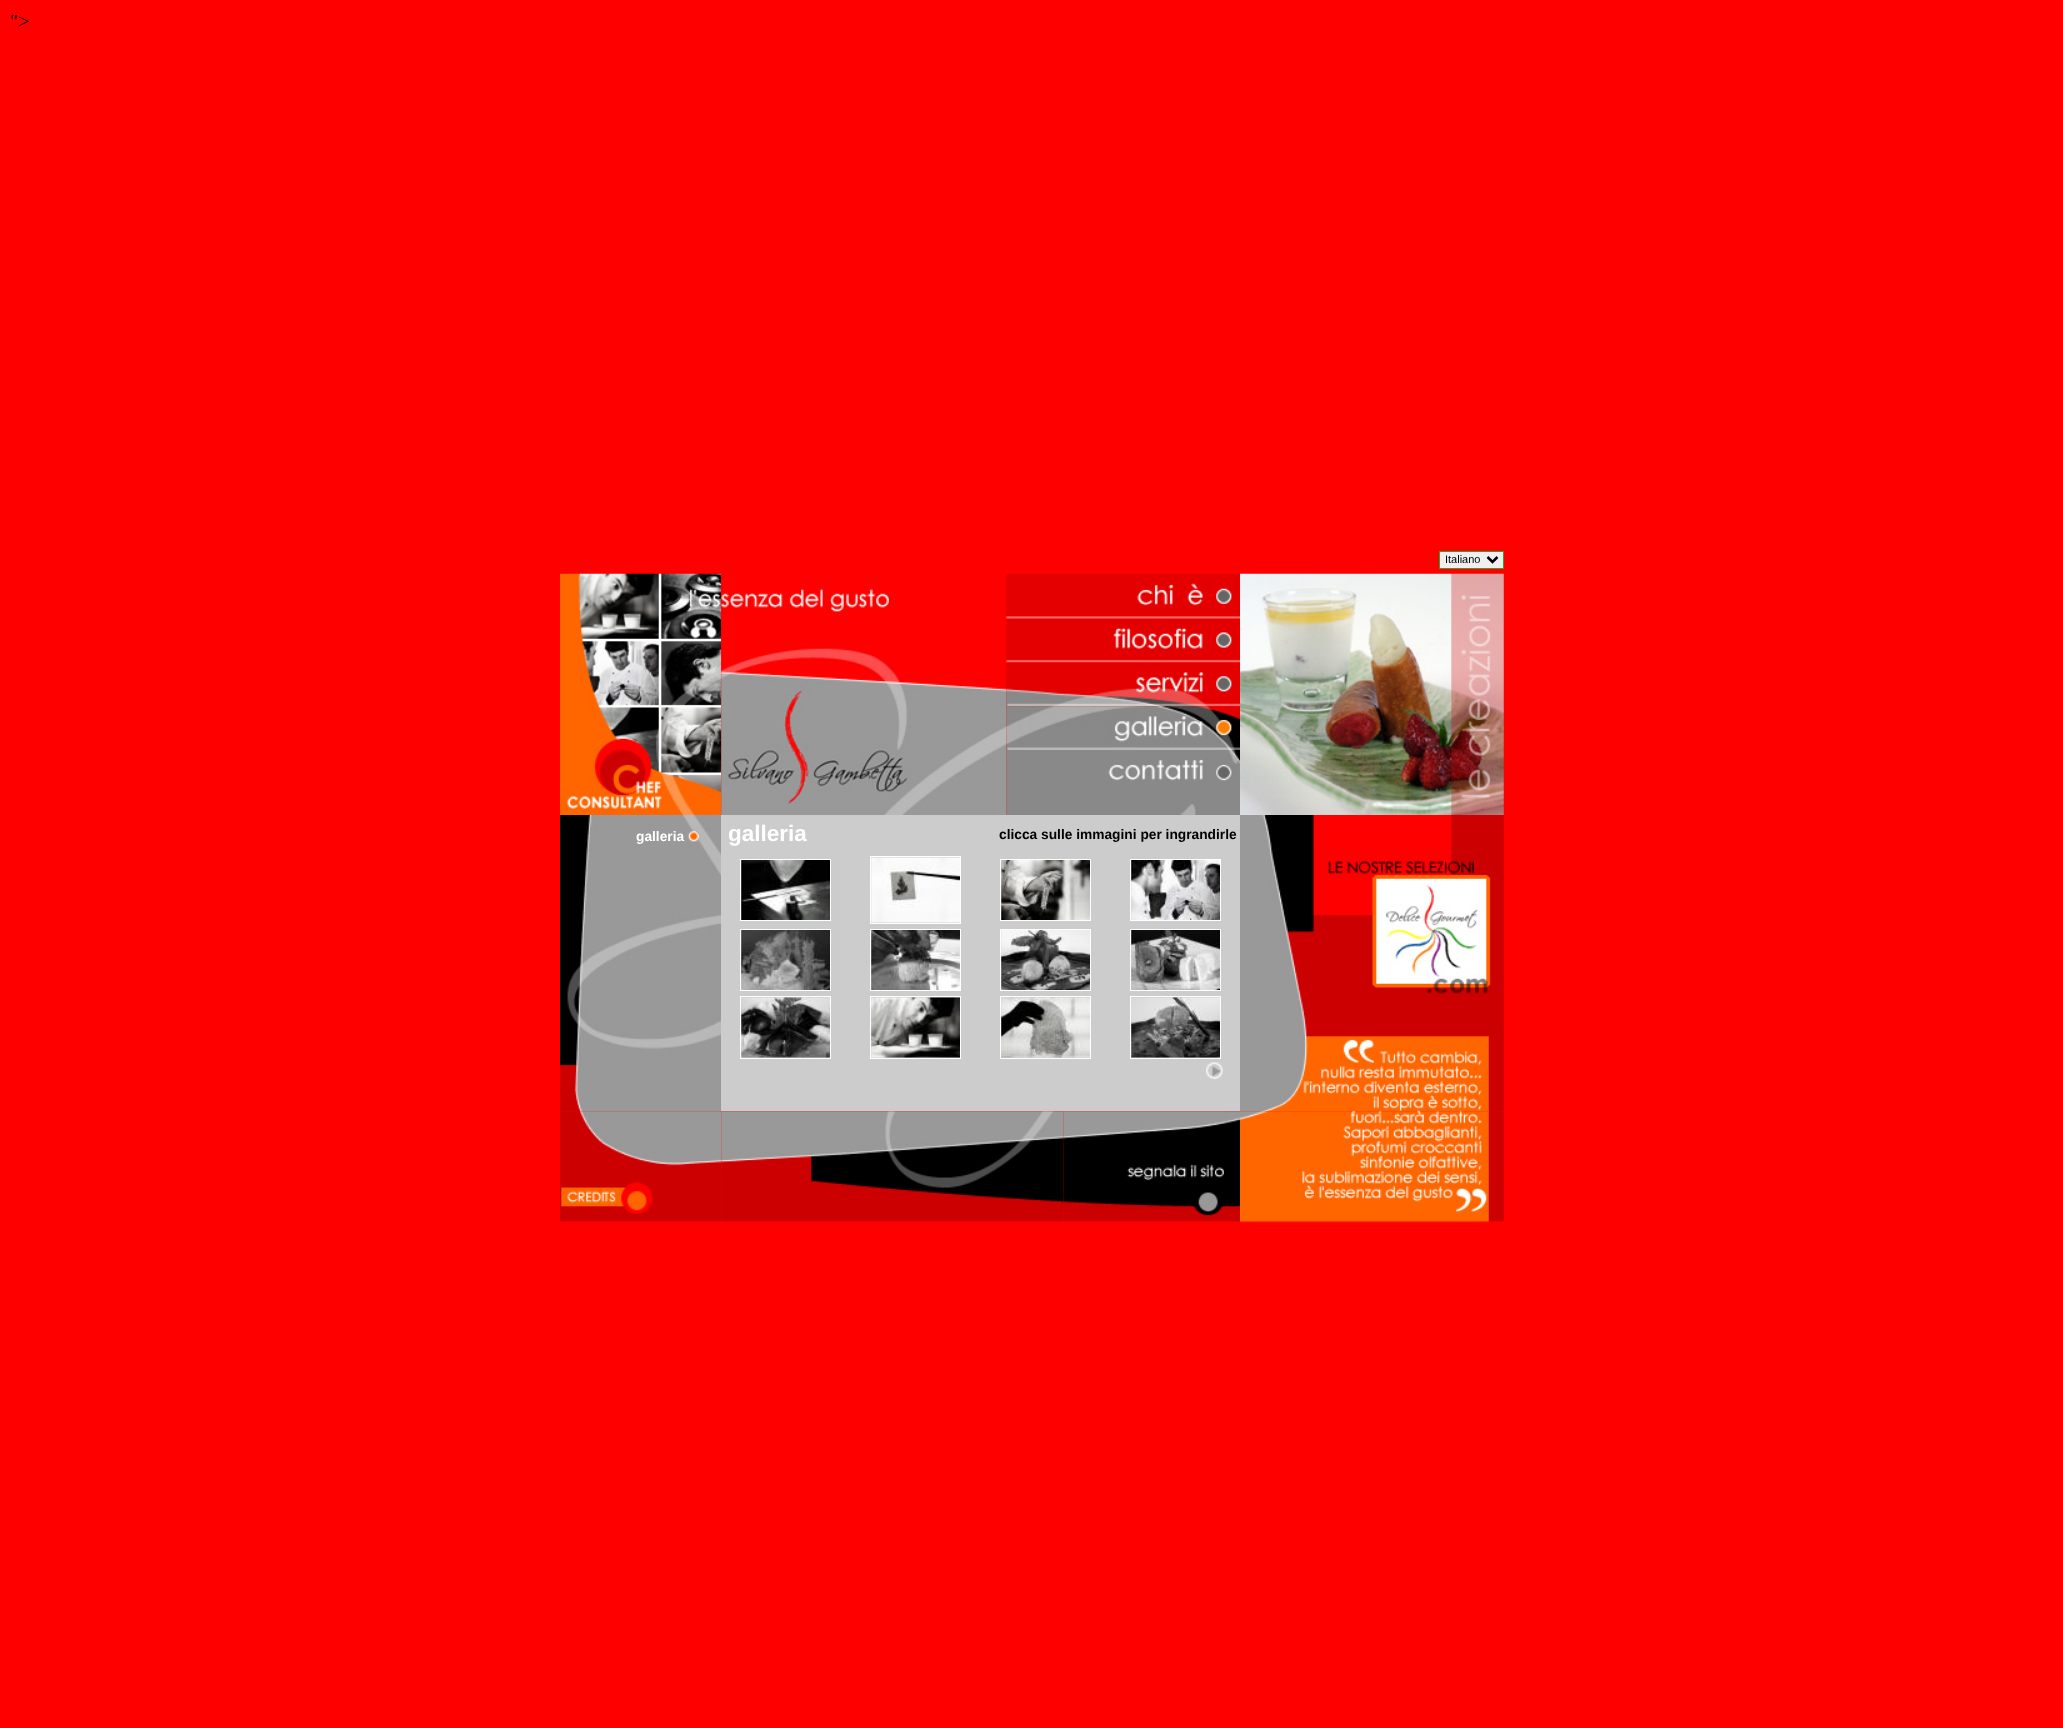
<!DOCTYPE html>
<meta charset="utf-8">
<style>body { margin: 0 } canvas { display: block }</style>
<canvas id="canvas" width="2063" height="1728"></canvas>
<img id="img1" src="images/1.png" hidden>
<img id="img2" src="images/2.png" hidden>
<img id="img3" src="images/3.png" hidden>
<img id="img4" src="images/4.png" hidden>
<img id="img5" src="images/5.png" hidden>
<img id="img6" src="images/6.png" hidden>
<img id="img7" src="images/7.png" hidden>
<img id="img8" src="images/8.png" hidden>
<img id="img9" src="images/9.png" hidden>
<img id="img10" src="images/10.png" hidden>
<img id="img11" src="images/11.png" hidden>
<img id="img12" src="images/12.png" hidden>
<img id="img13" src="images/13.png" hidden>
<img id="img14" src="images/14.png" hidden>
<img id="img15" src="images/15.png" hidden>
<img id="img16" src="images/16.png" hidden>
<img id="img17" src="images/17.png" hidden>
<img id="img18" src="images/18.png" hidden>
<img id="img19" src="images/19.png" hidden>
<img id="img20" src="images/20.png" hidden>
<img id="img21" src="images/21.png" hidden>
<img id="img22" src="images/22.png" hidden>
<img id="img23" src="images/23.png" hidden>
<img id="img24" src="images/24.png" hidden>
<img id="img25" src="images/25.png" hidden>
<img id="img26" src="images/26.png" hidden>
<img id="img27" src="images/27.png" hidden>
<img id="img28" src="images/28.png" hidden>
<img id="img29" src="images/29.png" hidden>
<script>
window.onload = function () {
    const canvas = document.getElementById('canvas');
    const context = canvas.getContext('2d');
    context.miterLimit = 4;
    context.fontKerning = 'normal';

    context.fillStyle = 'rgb(255, 0, 0)';
    context.fillRect(0, 0, 2063, 1728);
    context.fillStyle = 'rgb(239, 239, 239)';
    context.beginPath();
    context.rect(1439.5, 551.5, 64, 17);
    context.fill();
    context.strokeStyle = 'rgb(51, 160, 44)';
    context.stroke();
    context.beginPath();
    context.moveTo(1487.5, 557);
    context.lineTo(1492.5, 562);
    context.lineTo(1497.5, 557);
    context.strokeStyle = 'rgb(0, 0, 0)';
    context.lineWidth = 2.5;
    context.stroke();
    context.drawImage(document.getElementById('img1'), 560, 573, 162, 242);
    context.drawImage(document.getElementById('img2'), 721, 574, 286, 241);
    context.drawImage(document.getElementById('img3'), 1006, 573, 234, 46);
    context.drawImage(document.getElementById('img4'), 1006, 618, 234, 45);
    context.drawImage(document.getElementById('img5'), 1006, 662, 234, 45);
    context.drawImage(document.getElementById('img6'), 1006, 706, 234, 44);
    context.drawImage(document.getElementById('img7'), 1006, 750, 234, 65);
    context.drawImage(document.getElementById('img8'), 1240, 573, 264, 242);
    context.drawImage(document.getElementById('img9'), 560, 815, 30, 297);
    context.drawImage(document.getElementById('img10'), 590, 815, 132, 297);
    context.drawImage(document.getElementById('img11'), 688, 831, 11, 11);
    context.fillStyle = 'rgb(204, 204, 204)';
    context.fillRect(721, 815, 519, 296);
    context.strokeStyle = 'rgb(255, 255, 255)';
    context.lineWidth = 1;
    context.strokeRect(740.5, 859.5, 90, 61);
    context.drawImage(document.getElementById('img12'), 741, 860, 89, 60);
    context.strokeRect(870.5, 856.5, 90, 67);
    context.drawImage(document.getElementById('img13'), 871, 857, 89, 66);
    context.strokeRect(1000.5, 859.5, 90, 61);
    context.drawImage(document.getElementById('img14'), 1001, 860, 89, 60);
    context.strokeRect(1130.5, 859.5, 90, 61);
    context.drawImage(document.getElementById('img15'), 1131, 860, 89, 60);
    context.strokeRect(740.5, 929.5, 90, 61);
    context.drawImage(document.getElementById('img16'), 741, 930, 89, 60);
    context.strokeRect(870.5, 929.5, 90, 61);
    context.drawImage(document.getElementById('img17'), 871, 930, 89, 60);
    context.strokeRect(1000.5, 929.5, 90, 61);
    context.drawImage(document.getElementById('img18'), 1001, 930, 89, 60);
    context.strokeRect(1130.5, 929.5, 90, 61);
    context.drawImage(document.getElementById('img19'), 1131, 930, 89, 60);
    context.strokeRect(740.5, 996.5, 90, 62);
    context.drawImage(document.getElementById('img20'), 741, 997, 89, 61);
    context.strokeRect(870.5, 996.5, 90, 62);
    context.drawImage(document.getElementById('img21'), 871, 997, 89, 61);
    context.strokeRect(1000.5, 996.5, 90, 62);
    context.drawImage(document.getElementById('img22'), 1001, 997, 89, 61);
    context.strokeRect(1130.5, 996.5, 90, 62);
    context.drawImage(document.getElementById('img23'), 1131, 997, 89, 61);
    context.drawImage(document.getElementById('img24'), 1206, 1062, 17, 17);
    context.drawImage(document.getElementById('img25'), 1240, 815, 264, 297);
    context.drawImage(document.getElementById('img26'), 560, 1111, 162, 111);
    context.drawImage(document.getElementById('img27'), 721, 1111, 343, 111);
    context.drawImage(document.getElementById('img28'), 1063, 1111, 177, 111);
    context.drawImage(document.getElementById('img29'), 1240, 1111, 264, 112);
    context.font = '20px Liberation Serif';
    context.fillStyle = 'rgb(0, 0, 0)';
    context.fillText('">', 10, 28);
    context.font = '11px Liberation Sans';
    context.fillText('Italiano', 1445, 563);
    context.font = 'bold 13.75px Liberation Sans';
    context.fillStyle = 'rgb(255, 255, 255)';
    context.fillText('galleria', 636, 841);
    context.font = 'bold 22.5px Liberation Sans';
    context.fillText('galleria', 728, 841);
    context.font = 'bold 13.75px Liberation Sans';
    context.fillStyle = 'rgb(0, 0, 0)';
    context.fillText('clicca sulle immagini per ingrandirle', 999, 839);
};
</script>
